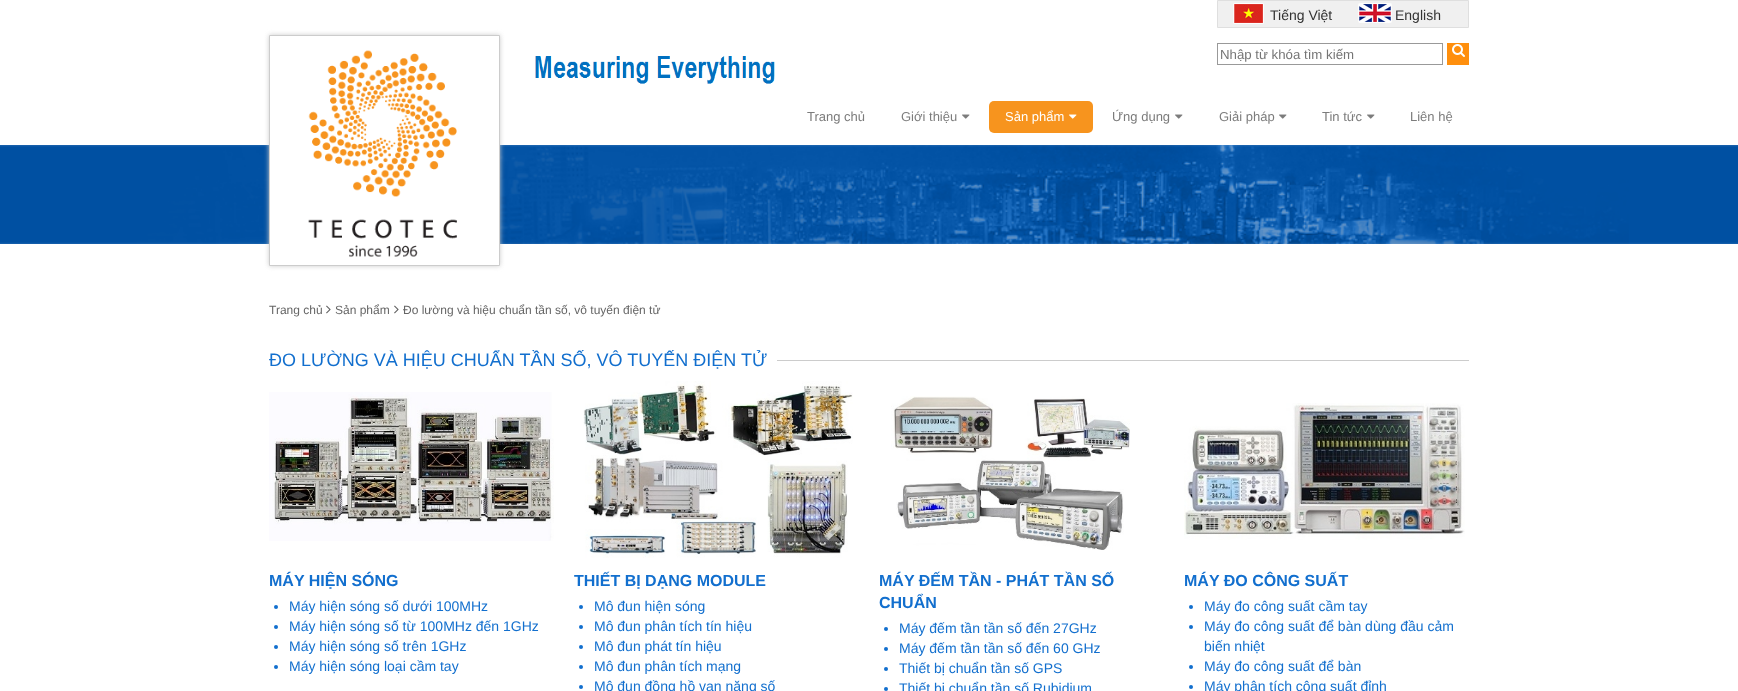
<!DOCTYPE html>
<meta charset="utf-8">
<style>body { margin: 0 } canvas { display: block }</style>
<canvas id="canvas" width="1738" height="691"></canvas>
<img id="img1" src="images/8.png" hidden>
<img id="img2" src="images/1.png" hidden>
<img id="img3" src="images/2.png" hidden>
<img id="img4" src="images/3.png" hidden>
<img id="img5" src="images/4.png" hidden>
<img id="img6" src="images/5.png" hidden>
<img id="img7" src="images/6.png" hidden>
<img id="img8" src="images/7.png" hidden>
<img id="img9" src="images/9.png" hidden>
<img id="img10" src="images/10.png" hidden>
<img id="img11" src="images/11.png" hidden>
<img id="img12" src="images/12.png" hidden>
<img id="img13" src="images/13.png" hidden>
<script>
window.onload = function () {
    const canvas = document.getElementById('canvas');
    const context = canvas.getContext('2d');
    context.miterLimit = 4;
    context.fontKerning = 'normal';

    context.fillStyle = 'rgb(255, 255, 255)';
    context.fillRect(0, 0, 1738, 691);
    context.drawImage(document.getElementById('img1'), 0, 145, 1738, 99);
    context.fillStyle = 'rgb(204, 204, 204)';
    context.filter = 'blur(2.5px)';
    context.beginPath();
    context.rect(269, 35, 231, 231);
    context.fill();
    context.filter = 'none';
    context.fillStyle = 'rgb(255, 255, 255)';
    context.beginPath();
    context.rect(269.5, 35.5, 230, 230);
    context.fill();
    context.strokeStyle = 'rgb(204, 204, 204)';
    context.stroke();
    context.drawImage(document.getElementById('img2'), 308, 50, 149, 207);
    context.drawImage(document.getElementById('img3'), 535, 56, 240, 28);
    context.fillStyle = 'rgb(240, 240, 240)';
    context.beginPath();
    context.rect(1217.5, 0.5, 251, 27);
    context.fill();
    context.strokeStyle = 'rgb(223, 223, 223)';
    context.stroke();
    context.drawImage(document.getElementById('img4'), 1233, 3, 31, 21);
    context.drawImage(document.getElementById('img5'), 1358, 3, 34, 20);
    context.strokeStyle = 'rgb(153, 153, 153)';
    context.strokeRect(1217.5, 43.5, 225, 21);
    context.fillStyle = 'rgb(255, 143, 13)';
    context.fillRect(1447, 43, 22, 22);
    context.drawImage(document.getElementById('img6'), 1452, 44, 13, 13);
    context.drawImage(document.getElementById('img7'), 962, 114, 8, 5);
    context.fillStyle = 'rgb(247, 148, 30)';
    context.beginPath();
    context.roundRect(989, 101, 104, 32, 5);
    context.fill();
    context.drawImage(document.getElementById('img8'), 1069, 114, 8, 5);
    context.drawImage(document.getElementById('img7'), 1175, 114, 8, 5);
    context.drawImage(document.getElementById('img7'), 1279, 114, 8, 5);
    context.drawImage(document.getElementById('img7'), 1367, 114, 8, 5);
    context.drawImage(document.getElementById('img9'), 326, 305, 5, 9);
    context.drawImage(document.getElementById('img9'), 394, 305, 5, 9);
    context.fillStyle = 'rgb(204, 204, 204)';
    context.fillRect(777, 360, 692, 1);
    context.drawImage(document.getElementById('img10'), 269, 392, 285, 149);
    context.fillStyle = 'rgb(18, 111, 206)';
    context.beginPath();
    context.arc(276, 607, 2, 0, 2 * Math.PI);
    context.fill();
    context.beginPath();
    context.arc(276, 627, 2, 0, 2 * Math.PI);
    context.fill();
    context.beginPath();
    context.arc(276, 647, 2, 0, 2 * Math.PI);
    context.fill();
    context.beginPath();
    context.arc(276, 667, 2, 0, 2 * Math.PI);
    context.fill();
    context.drawImage(document.getElementById('img11'), 583, 381, 270, 177);
    context.beginPath();
    context.arc(581, 607, 2, 0, 2 * Math.PI);
    context.fill();
    context.beginPath();
    context.arc(581, 627, 2, 0, 2 * Math.PI);
    context.fill();
    context.beginPath();
    context.arc(581, 647, 2, 0, 2 * Math.PI);
    context.fill();
    context.beginPath();
    context.arc(581, 667, 2, 0, 2 * Math.PI);
    context.fill();
    context.beginPath();
    context.arc(581, 687, 2, 0, 2 * Math.PI);
    context.fill();
    context.drawImage(document.getElementById('img12'), 891, 396, 239, 154);
    context.beginPath();
    context.arc(886, 629, 2, 0, 2 * Math.PI);
    context.fill();
    context.beginPath();
    context.arc(886, 649, 2, 0, 2 * Math.PI);
    context.fill();
    context.beginPath();
    context.arc(886, 669, 2, 0, 2 * Math.PI);
    context.fill();
    context.beginPath();
    context.arc(886, 689, 2, 0, 2 * Math.PI);
    context.fill();
    context.drawImage(document.getElementById('img13'), 1184, 403, 281, 137);
    context.beginPath();
    context.arc(1191, 607, 2, 0, 2 * Math.PI);
    context.fill();
    context.beginPath();
    context.arc(1191, 627, 2, 0, 2 * Math.PI);
    context.fill();
    context.beginPath();
    context.arc(1191, 667, 2, 0, 2 * Math.PI);
    context.fill();
    context.beginPath();
    context.arc(1191, 687, 2, 0, 2 * Math.PI);
    context.fill();
    context.font = '14px Liberation Sans';
    context.fillStyle = 'rgb(51, 51, 51)';
    context.fillText('Tiếng Việt', 1270, 20);
    context.fillText('English', 1395, 20);
    context.font = '13.25px Liberation Sans';
    context.fillStyle = 'rgb(117, 117, 117)';
    context.fillText('Nhập từ khóa tìm kiếm', 1220, 59);
    context.font = '13px Liberation Sans';
    context.fillStyle = 'rgb(124, 124, 124)';
    context.fillText('Trang chủ', 807, 121);
    context.fillText('Giới thiệu', 901, 121);
    context.fillStyle = 'rgb(255, 255, 255)';
    context.fillText('Sản phẩm', 1005, 121);
    context.fillStyle = 'rgb(124, 124, 124)';
    context.fillText('Ứng dụng', 1112, 121);
    context.fillText('Giải pháp', 1219, 121);
    context.fillText('Tin tức', 1322, 121);
    context.fillText('Liên hệ', 1410, 121);
    context.font = '12px Liberation Sans';
    context.fillStyle = 'rgb(102, 102, 102)';
    context.fillText('Trang chủ', 269, 314);
    context.fillText('Sản phẩm', 335, 314);
    context.fillText('Đo lường và hiệu chuẩn tần số, vô tuyến điện tử', 403, 314);
    context.font = '18px Liberation Sans';
    context.fillStyle = 'rgb(18, 111, 206)';
    context.fillText('ĐO LƯỜNG VÀ HIỆU CHUẨN TẦN SỐ, VÔ TUYẾN ĐIỆN TỬ', 269, 366);
    context.font = 'bold 16px Liberation Sans';
    context.fillText('MÁY HIỆN SÓNG', 269, 586);
    context.font = '14px Liberation Sans';
    context.fillText('Máy hiện sóng số dưới 100MHz', 289, 611);
    context.fillText('Máy hiện sóng số từ 100MHz đến 1GHz', 289, 631);
    context.fillText('Máy hiện sóng số trên 1GHz', 289, 651);
    context.fillText('Máy hiện sóng loại cầm tay', 289, 671);
    context.font = 'bold 16px Liberation Sans';
    context.fillText('THIẾT BỊ DẠNG MODULE', 574, 586);
    context.font = '14px Liberation Sans';
    context.fillText('Mô đun hiện sóng', 594, 611);
    context.fillText('Mô đun phân tích tín hiệu', 594, 631);
    context.fillText('Mô đun phát tín hiệu', 594, 651);
    context.fillText('Mô đun phân tích mạng', 594, 671);
    context.fillText('Mô đun đồng hồ vạn năng số', 594, 691);
    context.font = 'bold 16px Liberation Sans';
    context.fillText('MÁY ĐẾM TẦN - PHÁT TẦN SỐ', 879, 586);
    context.fillText('CHUẨN', 879, 608);
    context.font = '14px Liberation Sans';
    context.fillText('Máy đếm tần tần số đến 27GHz', 899, 633);
    context.fillText('Máy đếm tần tần số đến 60 GHz', 899, 653);
    context.fillText('Thiết bị chuẩn tần số GPS', 899, 673);
    context.fillText('Thiết bị chuẩn tần số Rubidium', 899, 693);
    context.font = 'bold 16px Liberation Sans';
    context.fillText('MÁY ĐO CÔNG SUẤT', 1184, 586);
    context.font = '14px Liberation Sans';
    context.fillText('Máy đo công suất cầm tay', 1204, 611);
    context.fillText('Máy đo công suất để bàn dùng đầu cảm', 1204, 631);
    context.fillText('biến nhiệt', 1204, 651);
    context.fillText('Máy đo công suất để bàn', 1204, 671);
    context.fillText('Máy phân tích công suất đỉnh', 1204, 691);
};
</script>
